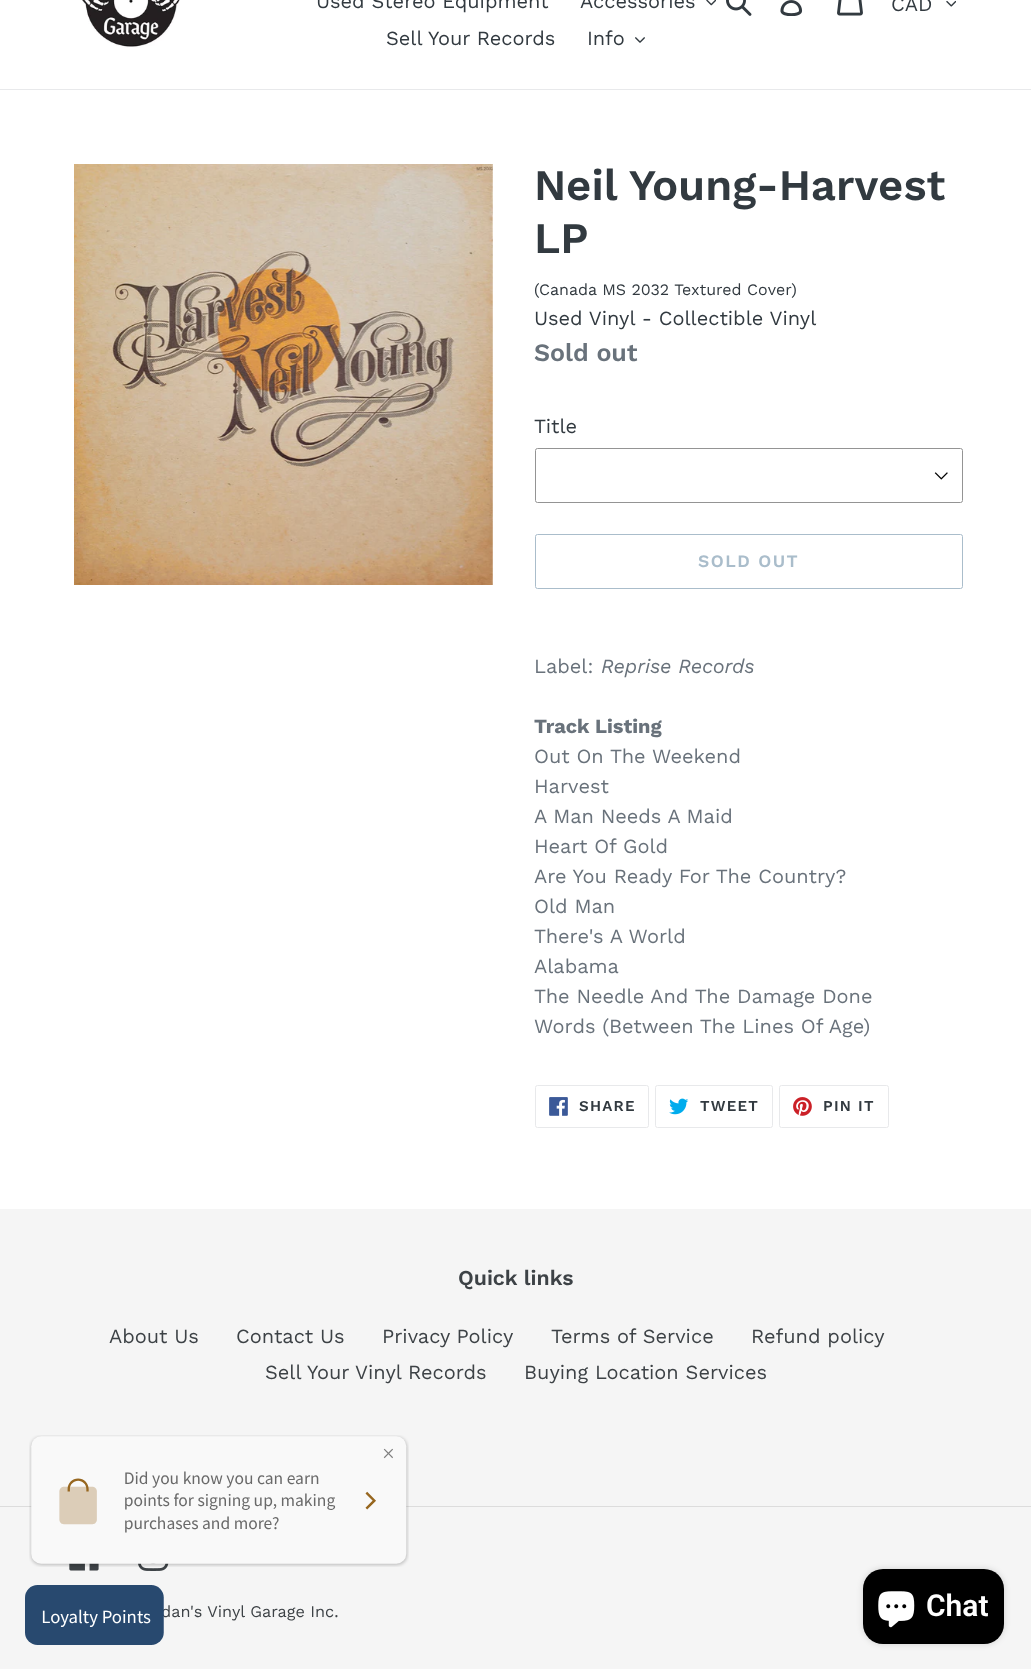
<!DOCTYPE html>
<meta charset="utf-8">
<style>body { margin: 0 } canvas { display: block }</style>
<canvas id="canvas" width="1031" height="1669"></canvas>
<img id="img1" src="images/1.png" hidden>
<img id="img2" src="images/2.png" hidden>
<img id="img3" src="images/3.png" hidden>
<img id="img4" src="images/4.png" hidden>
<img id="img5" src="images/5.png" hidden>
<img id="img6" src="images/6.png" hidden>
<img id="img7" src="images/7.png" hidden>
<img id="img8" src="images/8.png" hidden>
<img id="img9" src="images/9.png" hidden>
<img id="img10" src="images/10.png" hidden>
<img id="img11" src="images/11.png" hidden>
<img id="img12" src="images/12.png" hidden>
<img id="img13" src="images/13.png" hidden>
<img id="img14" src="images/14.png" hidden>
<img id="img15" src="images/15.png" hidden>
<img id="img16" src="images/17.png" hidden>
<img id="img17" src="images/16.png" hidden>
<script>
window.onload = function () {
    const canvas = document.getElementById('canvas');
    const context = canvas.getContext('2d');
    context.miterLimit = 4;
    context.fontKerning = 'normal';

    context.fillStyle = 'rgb(255, 255, 255)';
    context.fillRect(0, 0, 1031, 1669);
    context.fillStyle = 'rgb(232, 233, 235)';
    context.fillRect(0, 89, 1031, 1);
    context.drawImage(document.getElementById('img1'), 82, 0, 98, 48);
    context.drawImage(document.getElementById('img2'), 706, 0, 10, 6);
    context.drawImage(document.getElementById('img3'), 635, 37, 10, 6);
    context.drawImage(document.getElementById('img4'), 726, 0, 26, 16);
    context.drawImage(document.getElementById('img5'), 780, 0, 23, 16);
    context.drawImage(document.getElementById('img6'), 837, 0, 26, 16);
    context.drawImage(document.getElementById('img7'), 946, 0, 10, 7);
    context.drawImage(document.getElementById('img8'), 74, 164, 419, 421);
    context.drawImage(document.getElementById('img9'), 934, 472, 14, 8);
    context.beginPath();
    context.roundRect(535.5, 448.5, 427, 54, 2);
    context.strokeStyle = 'rgb(148, 148, 148)';
    context.stroke();
    context.beginPath();
    context.roundRect(535.5, 534.5, 427, 54, 2);
    context.strokeStyle = 'rgb(170, 189, 203)';
    context.stroke();
    context.beginPath();
    context.roundRect(535.5, 1085.5, 113, 42, 2);
    context.strokeStyle = 'rgb(232, 233, 235)';
    context.stroke();
    context.drawImage(document.getElementById('img10'), 549, 1097, 19, 19);
    context.beginPath();
    context.roundRect(655.5, 1085.5, 117, 42, 2);
    context.stroke();
    context.drawImage(document.getElementById('img11'), 669, 1098, 20, 17);
    context.beginPath();
    context.roundRect(779.5, 1085.5, 109, 42, 2);
    context.stroke();
    context.drawImage(document.getElementById('img12'), 793, 1097, 19, 19);
    context.fillStyle = 'rgb(245, 245, 245)';
    context.fillRect(0, 1209, 1031, 460);
    context.fillStyle = 'rgb(220, 220, 220)';
    context.fillRect(0, 1506, 1031, 1);
    context.drawImage(document.getElementById('img13'), 69, 1563, 30, 8);
    context.drawImage(document.getElementById('img14'), 138, 1563, 31, 8);
    context.drawImage(document.getElementById('img15'), 29, 1435, 380, 132);
    context.fillStyle = 'rgba(0, 0, 0, 0.15)';
    context.filter = 'blur(3px)';
    context.beginPath();
    context.roundRect(863, 1569, 141, 75, 20);
    context.fill();
    context.filter = 'none';
    context.fillStyle = 'rgb(0, 0, 0)';
    context.beginPath();
    context.roundRect(863, 1569, 141, 75, 20);
    context.fill();
    context.drawImage(document.getElementById('img16'), 878, 1591, 37, 37);
    context.font = '20px Work Sans';
    context.fillStyle = 'rgb(50, 58, 64)';
    context.fillText('Used Stereo Equipment', 316, 8);
    context.fillText('Accessories', 580, 8);
    context.fillText('Sell Your Records', 386, 45);
    context.fillText('Info', 587, 45);
    context.fillText('CAD', 891, 11);
    context.font = '600 43.75px Work Sans';
    context.fillText('Neil Young-Harvest', 534, 200);
    context.fillText('LP', 534, 253);
    context.font = '16px Work Sans';
    context.fillText('(Canada MS 2032 Textured Cover)', 534, 295);
    context.font = '20px Work Sans';
    context.fillText('Used Vinyl - Collectible Vinyl', 534, 325);
    context.font = '600 25px Work Sans';
    context.fillStyle = 'rgb(105, 114, 123)';
    context.fillText('Sold out', 534, 361);
    context.font = '20px Work Sans';
    context.fillStyle = 'rgb(50, 58, 64)';
    context.fillText('Title', 534, 433);
    context.letterSpacing = '1.5px';
    context.font = '600 17.5px Work Sans';
    context.fillStyle = 'rgb(170, 189, 203)';
    context.fillText('SOLD OUT', 698, 567);
    context.letterSpacing = '0px';
    context.font = '20px Work Sans';
    context.fillStyle = 'rgb(105, 114, 123)';
    context.fillText('Label:', 534, 673);
    context.font = 'italic 20px Work Sans';
    context.fillText('Reprise Records', 601, 673);
    context.font = 'bold 20px Work Sans';
    context.fillText('Track Listing', 534, 733);
    context.font = '20px Work Sans';
    context.fillText('Out On The Weekend', 534, 763);
    context.fillText('Harvest', 534, 793);
    context.fillText('A Man Needs A Maid', 534, 823);
    context.fillText('Heart Of Gold', 534, 853);
    context.fillText('Are You Ready For The Country?', 534, 883);
    context.fillText('Old Man', 534, 913);
    context.fillText('There\'s A World', 534, 943);
    context.fillText('Alabama', 534, 973);
    context.fillText('The Needle And The Damage Done', 534, 1003);
    context.fillText('Words (Between The Lines Of Age)', 534, 1033);
    context.letterSpacing = '1.25px';
    context.font = '600 15px Work Sans';
    context.fillStyle = 'rgb(50, 58, 64)';
    context.fillText('SHARE', 579, 1111);
    context.fillText('TWEET', 700, 1111);
    context.fillText('PIN IT', 823, 1111);
    context.letterSpacing = '0px';
    context.font = '600 21.25px Work Sans';
    context.fillStyle = 'rgb(61, 66, 70)';
    context.fillText('Quick links', 458, 1285);
    context.font = '20px Work Sans';
    context.fillText('About Us', 109, 1343);
    context.fillText('Contact Us', 236, 1343);
    context.fillText('Privacy Policy', 382, 1343);
    context.fillText('Terms of Service', 551, 1343);
    context.fillText('Refund policy', 751, 1343);
    context.fillText('Sell Your Vinyl Records', 265, 1379);
    context.fillText('Buying Location Services', 524, 1379);
    context.font = '16.25px Work Sans';
    context.fillText('dan\'s Vinyl Garage Inc.', 161, 1617);
    context.drawImage(document.getElementById('img17'), 25, 1585, 139, 60);
    context.font = '600 30px Roboto';
    context.fillStyle = 'rgb(255, 255, 255)';
    context.fillText('Chat', 926, 1616);
};
</script>
